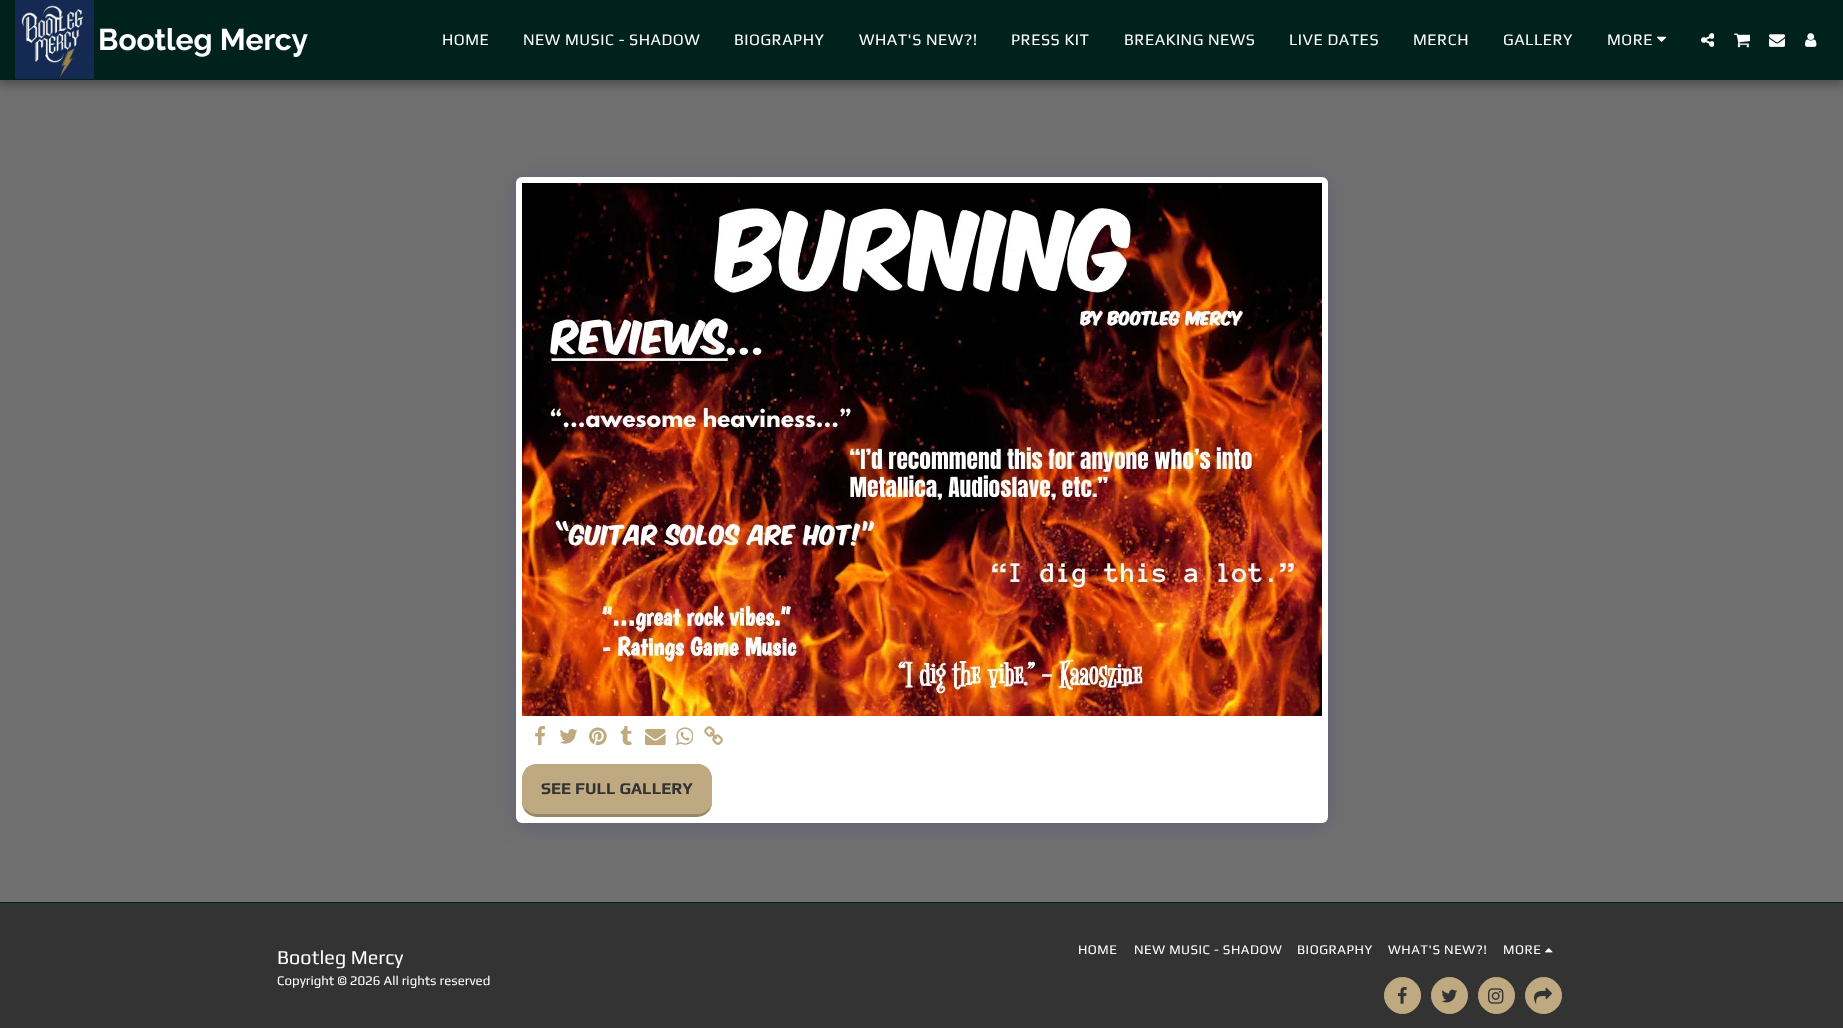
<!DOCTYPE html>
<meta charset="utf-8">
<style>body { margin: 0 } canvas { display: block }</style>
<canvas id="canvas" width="1843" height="1028"></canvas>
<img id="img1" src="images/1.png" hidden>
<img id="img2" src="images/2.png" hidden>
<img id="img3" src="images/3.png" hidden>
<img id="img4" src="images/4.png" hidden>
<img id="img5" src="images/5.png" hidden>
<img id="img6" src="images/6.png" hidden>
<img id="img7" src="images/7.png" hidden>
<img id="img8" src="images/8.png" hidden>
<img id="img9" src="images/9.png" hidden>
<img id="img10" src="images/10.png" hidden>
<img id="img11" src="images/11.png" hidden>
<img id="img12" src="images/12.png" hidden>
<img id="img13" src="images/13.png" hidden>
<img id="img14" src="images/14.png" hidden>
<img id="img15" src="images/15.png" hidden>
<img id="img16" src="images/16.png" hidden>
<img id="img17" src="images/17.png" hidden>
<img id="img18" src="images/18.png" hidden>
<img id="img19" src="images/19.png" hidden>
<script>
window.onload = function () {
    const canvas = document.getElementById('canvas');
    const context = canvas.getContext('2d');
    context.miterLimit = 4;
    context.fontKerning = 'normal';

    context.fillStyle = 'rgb(51, 51, 51)';
    context.fillRect(0, 0, 1843, 1028);
    context.fillStyle = 'rgb(112, 112, 112)';
    context.fillRect(0, 80, 1843, 822);
    context.fillStyle = 'rgba(0, 0, 0, 0.35)';
    context.filter = 'blur(6px)';
    context.beginPath();
    context.rect(-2, 0, 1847, 84);
    context.fill();
    context.filter = 'none';
    context.fillStyle = 'rgb(0, 34, 28)';
    context.fillRect(0, 0, 1843, 80);
    context.drawImage(document.getElementById('img1'), 15, 0, 79, 79);
    context.drawImage(document.getElementById('img2'), 1657, 36, 10, 6);
    context.drawImage(document.getElementById('img3'), 1701, 33, 13, 14);
    context.drawImage(document.getElementById('img4'), 1734, 33, 16, 15);
    context.drawImage(document.getElementById('img5'), 1769, 34, 16, 13);
    context.drawImage(document.getElementById('img6'), 1805, 33, 12, 14);
    context.fillStyle = 'rgba(77, 63, 122, 0.4)';
    context.filter = 'blur(10px)';
    context.beginPath();
    context.roundRect(516, 180, 812, 646, 6);
    context.fill();
    context.filter = 'none';
    context.fillStyle = 'rgb(255, 255, 255)';
    context.beginPath();
    context.roundRect(516, 177, 812, 646, 6);
    context.fill();
    context.drawImage(document.getElementById('img7'), 522, 183, 800, 533);
    context.drawImage(document.getElementById('img8'), 535, 726, 11, 20);
    context.drawImage(document.getElementById('img9'), 559, 729, 19, 15);
    context.drawImage(document.getElementById('img10'), 589, 727, 18, 19);
    context.drawImage(document.getElementById('img11'), 620, 726, 12, 20);
    context.drawImage(document.getElementById('img12'), 645, 728, 21, 18);
    context.drawImage(document.getElementById('img13'), 676, 727, 17, 19);
    context.drawImage(document.getElementById('img14'), 704, 726, 19, 19);
    context.fillStyle = 'rgb(191, 169, 128)';
    context.beginPath();
    context.roundRect(522, 764, 190, 53, 15);
    context.fill();
    context.beginPath();
    context.moveTo(537, 764);
    context.bezierCurveTo(533, 764, 529, 766, 526, 768);
    context.lineTo(527, 769);
    context.bezierCurveTo(530, 766, 533, 765, 537, 765);
    context.lineTo(697, 765);
    context.bezierCurveTo(701, 765, 704, 766, 707, 769);
    context.lineTo(708, 768);
    context.bezierCurveTo(705, 766, 701, 764, 697, 764);
    context.closePath();
    context.fill();
    context.beginPath();
    context.moveTo(712, 802);
    context.lineTo(712, 779);
    context.bezierCurveTo(712, 775, 710, 771, 708, 768);
    context.lineTo(707, 769);
    context.bezierCurveTo(713, 775, 711, 783, 711, 790);
    context.bezierCurveTo(711, 796, 712, 803, 709, 808);
    context.lineTo(710, 810);
    context.bezierCurveTo(711, 808, 712, 805, 712, 802);
    context.closePath();
    context.fill();
    context.fillStyle = 'rgba(0, 0, 0, 0.2)';
    context.beginPath();
    context.moveTo(537, 817);
    context.lineTo(697, 817);
    context.bezierCurveTo(702, 817, 707, 814, 710, 810);
    context.lineTo(709, 808);
    context.bezierCurveTo(707, 812, 702, 814, 697, 814);
    context.lineTo(537, 814);
    context.bezierCurveTo(532, 814, 527, 812, 525, 808);
    context.lineTo(524, 810);
    context.bezierCurveTo(527, 814, 532, 817, 537, 817);
    context.closePath();
    context.fill();
    context.fillStyle = 'rgb(191, 169, 128)';
    context.beginPath();
    context.moveTo(522, 779);
    context.lineTo(522, 802);
    context.bezierCurveTo(522, 805, 523, 808, 524, 810);
    context.lineTo(525, 808);
    context.bezierCurveTo(522, 803, 523, 796, 523, 790);
    context.bezierCurveTo(523, 783, 521, 775, 527, 769);
    context.lineTo(526, 768);
    context.bezierCurveTo(524, 771, 522, 775, 522, 779);
    context.closePath();
    context.fill();
    context.fillStyle = 'rgb(0, 34, 28)';
    context.fillRect(0, 902, 1843, 1);
    context.drawImage(document.getElementById('img15'), 1545, 948, 8, 5);
    context.fillStyle = 'rgb(191, 169, 128)';
    context.beginPath();
    context.arc(1402.5, 995.5, 18, 0, 2 * Math.PI);
    context.fill();
    context.strokeStyle = 'rgb(191, 169, 128)';
    context.stroke();
    context.drawImage(document.getElementById('img16'), 1397, 987, 10, 17);
    context.beginPath();
    context.arc(1449.5, 995.5, 18, 0, 2 * Math.PI);
    context.fill();
    context.stroke();
    context.drawImage(document.getElementById('img17'), 1441, 989, 16, 14);
    context.beginPath();
    context.arc(1496.5, 995.5, 18, 0, 2 * Math.PI);
    context.fill();
    context.stroke();
    context.drawImage(document.getElementById('img18'), 1488, 988, 16, 16);
    context.beginPath();
    context.arc(1543.5, 995.5, 18, 0, 2 * Math.PI);
    context.fill();
    context.stroke();
    context.drawImage(document.getElementById('img19'), 1534, 987, 18, 17);
    context.font = 'bold 30px Raleway';
    context.fillStyle = 'rgb(255, 255, 255)';
    context.fillText('Bootleg Mercy', 98, 50);
    context.letterSpacing = '0.5px';
    context.font = '16px Play';
    context.fillText('HOME', 442, 45);
    context.fillText('NEW MUSIC - SHADOW', 523, 45);
    context.fillText('BIOGRAPHY', 734, 45);
    context.fillText('WHAT\'S NEW?!', 859, 45);
    context.fillText('PRESS KIT', 1011, 45);
    context.fillText('BREAKING NEWS', 1124, 45);
    context.fillText('LIVE DATES', 1289, 45);
    context.fillText('MERCH', 1413, 45);
    context.fillText('GALLERY', 1503, 45);
    context.fillText('MORE', 1607, 45);
    context.letterSpacing = '0px';
    context.font = 'bold 16.5px Play';
    context.fillStyle = 'rgb(51, 51, 51)';
    context.fillText('SEE FULL GALLERY', 541, 794);
    context.font = '19.75px Play';
    context.fillStyle = 'rgb(255, 255, 255)';
    context.fillText('Bootleg Mercy', 277, 964);
    context.font = '13.25px Play';
    context.fillText('Copyright © 2026 All rights reserved', 277, 985);
    context.letterSpacing = '0.5px';
    context.fillText('HOME', 1078, 954);
    context.fillText('NEW MUSIC - SHADOW', 1134, 954);
    context.fillText('BIOGRAPHY', 1297, 954);
    context.fillText('WHAT\'S NEW?!', 1388, 954);
    context.fillText('MORE', 1503, 954);
};
</script>
